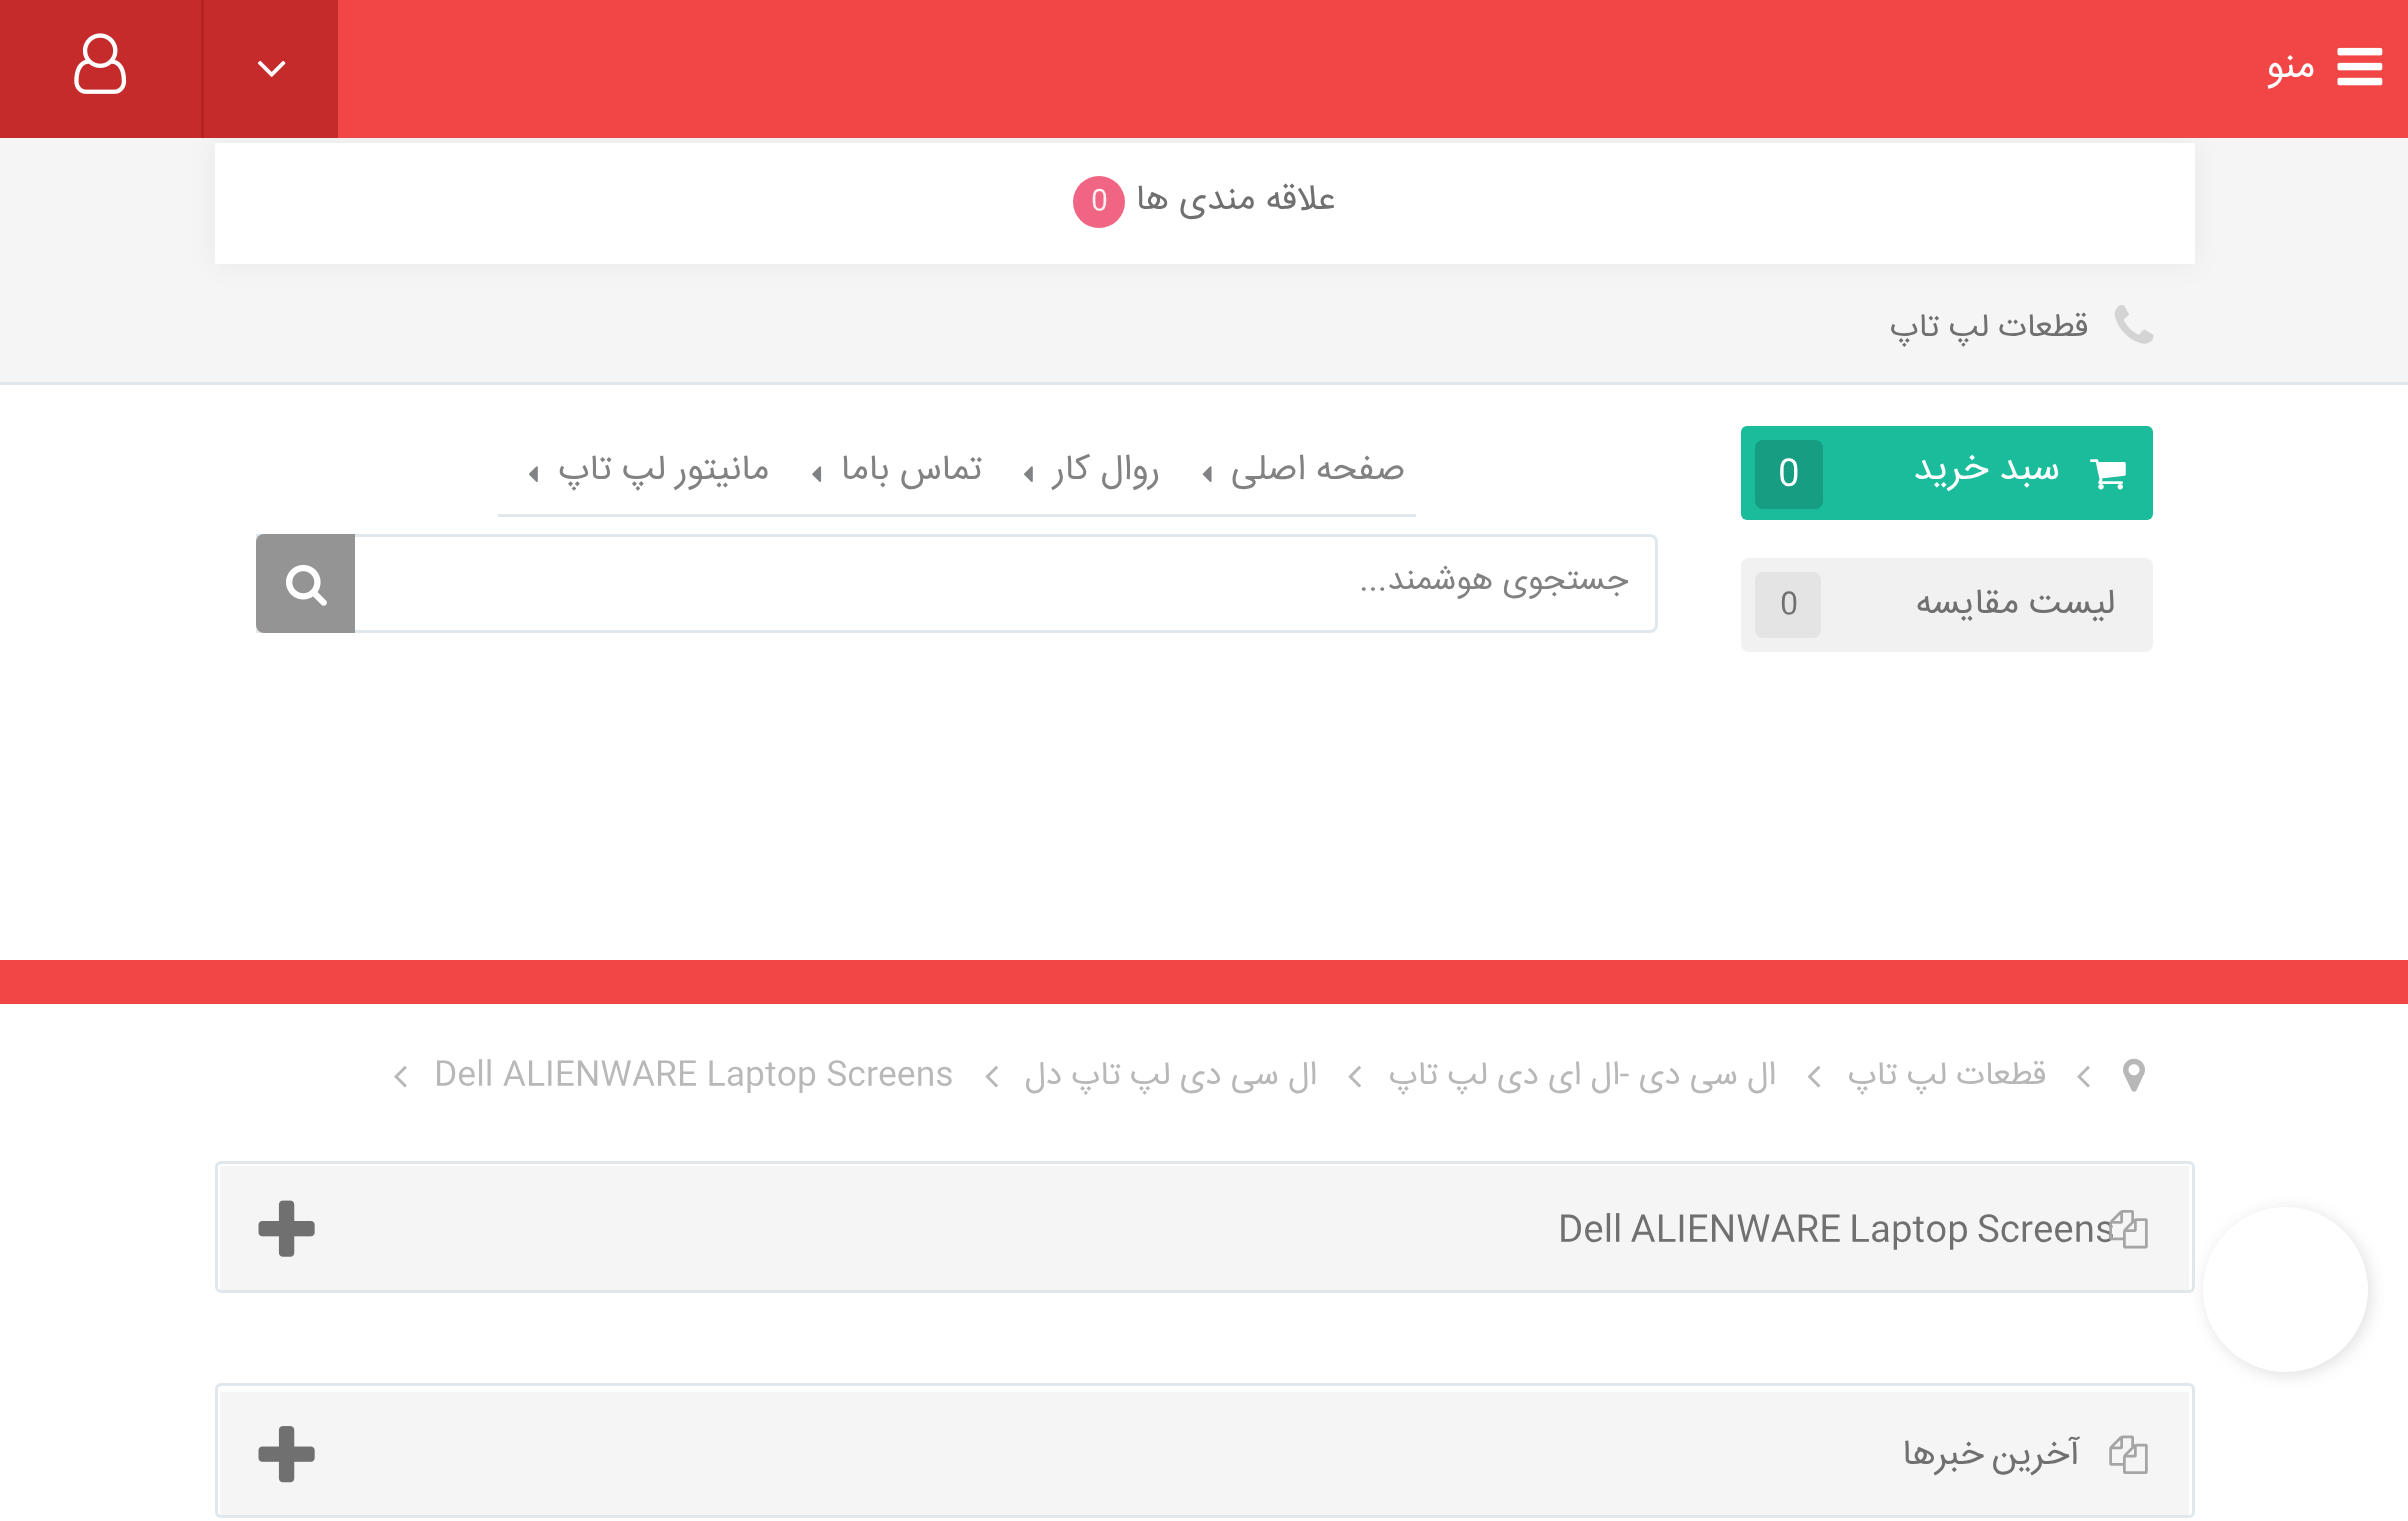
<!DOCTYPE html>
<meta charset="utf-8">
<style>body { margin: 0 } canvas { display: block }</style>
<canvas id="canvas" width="2408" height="1521"></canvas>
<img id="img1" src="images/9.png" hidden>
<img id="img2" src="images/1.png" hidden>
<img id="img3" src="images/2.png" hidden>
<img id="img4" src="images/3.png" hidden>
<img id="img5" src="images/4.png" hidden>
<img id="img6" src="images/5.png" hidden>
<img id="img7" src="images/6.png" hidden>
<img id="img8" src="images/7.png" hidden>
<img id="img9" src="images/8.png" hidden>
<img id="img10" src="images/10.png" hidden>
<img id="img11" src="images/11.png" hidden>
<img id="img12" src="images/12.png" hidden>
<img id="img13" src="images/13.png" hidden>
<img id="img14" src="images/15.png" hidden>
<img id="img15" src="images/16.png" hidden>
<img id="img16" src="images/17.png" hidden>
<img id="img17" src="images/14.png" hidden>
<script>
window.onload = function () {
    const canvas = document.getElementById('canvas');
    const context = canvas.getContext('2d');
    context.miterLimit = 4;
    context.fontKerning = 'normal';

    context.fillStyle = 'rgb(255, 255, 255)';
    context.fillRect(0, 0, 2408, 1521);
    context.fillStyle = 'rgb(242, 70, 70)';
    context.fillRect(0, 960, 2408, 44);
    context.fillStyle = 'rgb(245, 245, 245)';
    context.fillRect(0, 138, 2408, 244);
    context.drawImage(document.getElementById('img1'), 2114, 305, 40, 39);
    context.fillStyle = 'rgba(0, 0, 0, 0.05)';
    context.filter = 'blur(14px)';
    context.beginPath();
    context.rect(215, 143, 1980, 121);
    context.fill();
    context.filter = 'none';
    context.fillStyle = 'rgb(242, 70, 70)';
    context.fillRect(338, 0, 2070, 138);
    context.drawImage(document.getElementById('img2'), 2337, 47, 46, 39);
    context.fillStyle = 'rgb(197, 43, 43)';
    context.fillRect(204, 0, 134, 138);
    context.fillStyle = 'rgb(181, 34, 34)';
    context.fillRect(201, 0, 3, 138);
    context.drawImage(document.getElementById('img3'), 257, 60, 29, 17);
    context.fillStyle = 'rgb(197, 43, 43)';
    context.fillRect(0, 0, 201, 138);
    context.drawImage(document.getElementById('img4'), 74, 33, 53, 61);
    context.fillStyle = 'rgb(26, 188, 156)';
    context.beginPath();
    context.roundRect(1741, 426, 412, 94, 6);
    context.fill();
    context.drawImage(document.getElementById('img5'), 2090, 459, 36, 31);
    context.fillStyle = 'rgb(22, 157, 130)';
    context.beginPath();
    context.roundRect(1755, 440, 68, 69, 8);
    context.fill();
    context.fillStyle = 'rgb(241, 241, 241)';
    context.beginPath();
    context.roundRect(1741, 558, 412, 94, 8);
    context.fill();
    context.fillStyle = 'rgb(228, 228, 228)';
    context.beginPath();
    context.roundRect(1755, 572, 66, 66, 8);
    context.fill();
    context.fillStyle = 'rgb(225, 232, 237)';
    context.fillRect(498, 514, 918, 3);
    context.drawImage(document.getElementById('img6'), 1202, 466, 10, 16);
    context.drawImage(document.getElementById('img7'), 1024, 466, 9, 16);
    context.drawImage(document.getElementById('img8'), 812, 466, 10, 16);
    context.drawImage(document.getElementById('img7'), 529, 466, 9, 16);
    context.beginPath();
    context.roundRect(257.5, 535.5, 1399, 96, [0, 6.5, 6.5, 0]);
    context.strokeStyle = 'rgb(225, 232, 237)';
    context.lineWidth = 3;
    context.stroke();
    context.fillStyle = 'rgb(148, 148, 148)';
    context.beginPath();
    context.roundRect(256, 534, 99, 99, [8, 0, 0, 8]);
    context.fill();
    context.drawImage(document.getElementById('img9'), 286, 564, 41, 42);
    context.fillStyle = 'rgb(225, 232, 237)';
    context.fillRect(0, 382, 2408, 3);
    context.fillStyle = 'rgb(255, 255, 255)';
    context.fillRect(215, 143, 1980, 121);
    context.fillStyle = 'rgb(240, 101, 132)';
    context.beginPath();
    context.arc(1099, 202, 26, 0, 2 * Math.PI);
    context.fill();
    context.beginPath();
    context.roundRect(216.5, 1162.5, 1977, 129, 4.5);
    context.stroke();
    context.fillStyle = 'rgb(245, 245, 245)';
    context.fillRect(220, 1166, 1969, 124);
    context.beginPath();
    context.roundRect(216.5, 1384.5, 1977, 132, 4.5);
    context.stroke();
    context.fillRect(220, 1392, 1969, 123);
    context.fillStyle = 'rgb(224, 224, 224)';
    context.filter = 'blur(8px)';
    context.beginPath();
    context.roundRect(2206, 1210, 165, 165, 82.5);
    context.fill();
    context.filter = 'none';
    context.fillStyle = 'rgb(255, 255, 255)';
    context.beginPath();
    context.arc(2285.5, 1289.5, 82.5, 0, 2 * Math.PI);
    context.fill();
    context.drawImage(document.getElementById('img10'), 2123, 1058, 22, 34);
    context.drawImage(document.getElementById('img11'), 2077, 1066, 13, 22);
    context.drawImage(document.getElementById('img12'), 1807, 1066, 14, 22);
    context.drawImage(document.getElementById('img13'), 1348, 1066, 13, 22);
    context.drawImage(document.getElementById('img13'), 985, 1066, 13, 22);
    context.drawImage(document.getElementById('img11'), 394, 1066, 13, 22);
    context.drawImage(document.getElementById('img14'), 258, 1200, 57, 57);
    context.drawImage(document.getElementById('img15'), 2109, 1435, 39, 39);
    context.drawImage(document.getElementById('img16'), 258, 1426, 57, 57);
    context.direction = 'rtl';
    context.font = '38.5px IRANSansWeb';
    context.fillText('منو', 2315, 77);
    context.fillText('سبد خرید', 2060, 479);
    context.direction = 'ltr';
    context.font = '35.75px IRANSansWeb';
    context.fillText('0', 1778, 484);
    context.direction = 'rtl';
    context.fillStyle = 'rgb(112, 112, 112)';
    context.fillText('لیست مقایسه', 2115, 613);
    context.direction = 'ltr';
    context.font = '30px IRANSansWeb';
    context.fillText('0', 1780, 613);
    context.direction = 'rtl';
    context.font = '35.75px IRANSansWeb';
    context.fillStyle = 'rgb(130, 130, 130)';
    context.fillText('صفحه اصلی', 1405, 479);
    context.fillText('روال کار', 1160, 479);
    context.fillText('تماس باما', 982, 479);
    context.fillText('مانیتور لپ تاپ', 769, 479);
    context.font = '33px IRANSansWeb';
    context.fillText('جستجوی هوشمند...', 1628, 589);
    context.font = '35.75px IRANSansWeb';
    context.fillStyle = 'rgb(112, 112, 112)';
    context.fillText('علاقه مندی ها', 1336, 209);
    context.direction = 'ltr';
    context.font = '28px IRANSansWeb';
    context.fillStyle = 'rgb(255, 241, 242)';
    context.fillText('0', 1091, 209);
    context.direction = 'rtl';
    context.font = '33px IRANSansWeb';
    context.fillStyle = 'rgb(112, 112, 112)';
    context.fillText('قطعات لپ تاپ', 2088, 336);
    context.fillStyle = 'rgb(184, 184, 184)';
    context.fillText('قطعات لپ تاپ', 2046, 1084);
    context.fillText('ال سی دی -ال ای دی لپ تاپ', 1776, 1084);
    context.fillText('ال سی دی لپ تاپ دل', 1317, 1084);
    context.direction = 'ltr';
    context.fillText('Dell ALIENWARE Laptop Screens', 434, 1084);
    context.wordSpacing = '-2px';
    context.font = '35.75px IRANSansWeb';
    context.fillStyle = 'rgb(112, 112, 112)';
    context.fillText('Dell ALIENWARE Laptop Screens', 1558, 1240);
    context.drawImage(document.getElementById('img17'), 2109, 1210, 39, 39);
    context.direction = 'rtl';
    context.fillText('آخرین خبرها', 2080, 1464);
};
</script>
